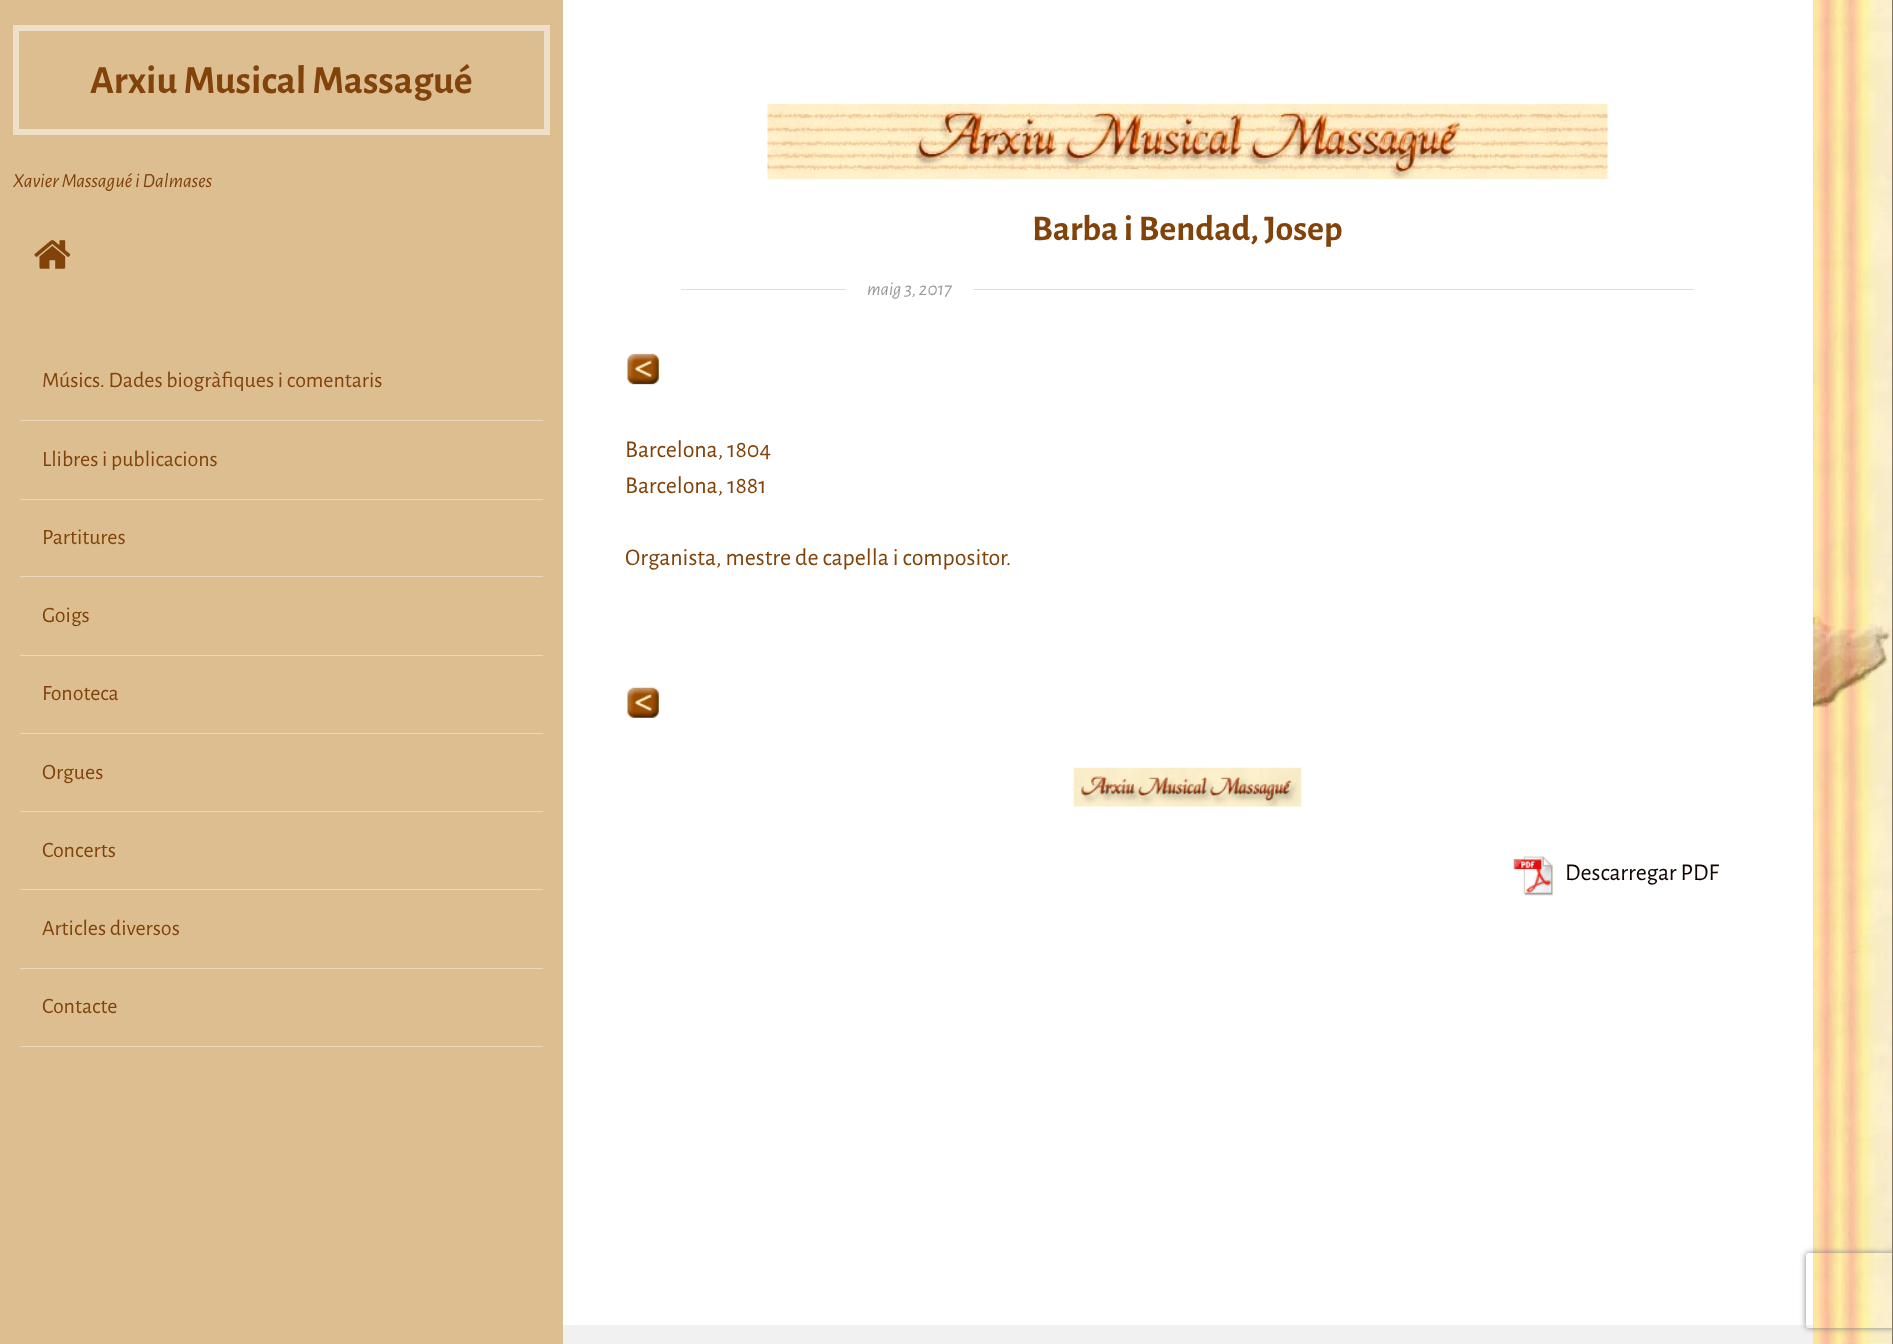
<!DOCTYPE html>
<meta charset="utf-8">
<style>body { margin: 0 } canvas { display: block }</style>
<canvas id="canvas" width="1893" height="1344"></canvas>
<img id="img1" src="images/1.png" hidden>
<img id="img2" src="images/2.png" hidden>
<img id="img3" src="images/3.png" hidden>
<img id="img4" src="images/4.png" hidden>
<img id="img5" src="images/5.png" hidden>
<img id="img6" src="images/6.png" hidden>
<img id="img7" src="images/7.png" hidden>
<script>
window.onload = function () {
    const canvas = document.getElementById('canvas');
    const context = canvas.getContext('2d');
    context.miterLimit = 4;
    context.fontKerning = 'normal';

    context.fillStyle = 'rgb(255, 255, 255)';
    context.fillRect(0, 0, 1893, 1344);
    context.drawImage(document.getElementById('img1'), 1813, 0, 80, 1344);
    context.fillStyle = 'rgb(221, 190, 144)';
    context.fillRect(0, 0, 563, 1344);
    context.strokeStyle = 'rgb(238, 223, 200)';
    context.lineWidth = 6;
    context.strokeRect(16, 28, 531, 104);
    context.drawImage(document.getElementById('img2'), 34, 240, 37, 29);
    context.fillStyle = 'rgb(235, 216, 188)';
    context.fillRect(20, 420, 523, 1);
    context.fillRect(20, 499, 523, 1);
    context.fillRect(20, 576, 523, 1);
    context.fillRect(20, 655, 523, 1);
    context.fillRect(20, 733, 523, 1);
    context.fillRect(20, 811, 523, 1);
    context.fillRect(20, 889, 523, 1);
    context.fillRect(20, 968, 523, 1);
    context.fillRect(20, 1046, 523, 1);
    context.drawImage(document.getElementById('img3'), 767, 104, 841, 75);
    context.fillStyle = 'rgb(223, 223, 223)';
    context.fillRect(681, 289, 165, 1);
    context.fillRect(973, 289, 721, 1);
    context.drawImage(document.getElementById('img4'), 627, 353, 32, 32);
    context.drawImage(document.getElementById('img5'), 627, 687, 32, 31);
    context.drawImage(document.getElementById('img6'), 1073, 767, 229, 40);
    context.drawImage(document.getElementById('img7'), 1513, 856, 40, 40);
    context.fillStyle = 'rgb(241, 241, 241)';
    context.fillRect(563, 1325, 1250, 19);
    context.save();
    context.beginPath();
    context.moveTo(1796, 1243);
    context.lineTo(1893, 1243);
    context.lineTo(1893, 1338);
    context.lineTo(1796, 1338);
    context.closePath();
    context.moveTo(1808.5, 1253);
    context.lineTo(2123.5, 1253);
    context.bezierCurveTo(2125, 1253, 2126, 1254, 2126, 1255.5);
    context.lineTo(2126, 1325.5);
    context.bezierCurveTo(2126, 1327, 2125, 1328, 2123.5, 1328);
    context.lineTo(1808.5, 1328);
    context.bezierCurveTo(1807, 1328, 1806, 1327, 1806, 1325.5);
    context.lineTo(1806, 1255.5);
    context.bezierCurveTo(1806, 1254, 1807, 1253, 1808.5, 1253);
    context.closePath();
    context.clip('evenodd');
    context.fillStyle = 'rgb(128, 128, 128)';
    context.filter = 'blur(3px)';
    context.beginPath();
    context.roundRect(1806, 1253, 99, 75, 2.5);
    context.fill();
    context.filter = 'none';
    context.restore();
    context.font = 'bold 40px Alegreya Sans';
    context.fillStyle = 'rgb(129, 67, 10)';
    context.fillText('Arxiu Musical Massagué', 90, 93);
    context.font = 'italic 20px Alegreya Sans';
    context.fillText('Xavier Massagué i Dalmases', 13, 187);
    context.font = '22px Alegreya Sans';
    context.fillText('Músics. Dades biogràfiques i comentaris', 42, 387);
    context.fillText('Llibres i publicacions', 42, 466);
    context.fillText('Partitures', 42, 544);
    context.fillText('Goigs', 42, 622);
    context.fillText('Fonoteca', 42, 700);
    context.fillText('Orgues', 42, 779);
    context.fillText('Concerts', 42, 857);
    context.fillText('Articles diversos', 42, 935);
    context.fillText('Contacte', 42, 1013);
    context.font = 'bold 36px Alegreya Sans';
    context.fillText('Barba i Bendad, Josep', 1032, 240);
    context.font = 'italic 19px Alegreya Sans';
    context.fillStyle = 'rgb(153, 153, 153)';
    context.fillText('maig 3, 2017', 867, 295);
    context.font = '24px Alegreya Sans';
    context.fillStyle = 'rgb(129, 67, 10)';
    context.fillText('Barcelona, 1804', 625, 457);
    context.fillText('Barcelona, 1881', 625, 493);
    context.fillText('Organista, mestre de capella i compositor.', 625, 565);
    context.fillStyle = 'rgb(17, 4, 0)';
    context.fillText('Descarregar PDF', 1565, 880);
};
</script>
